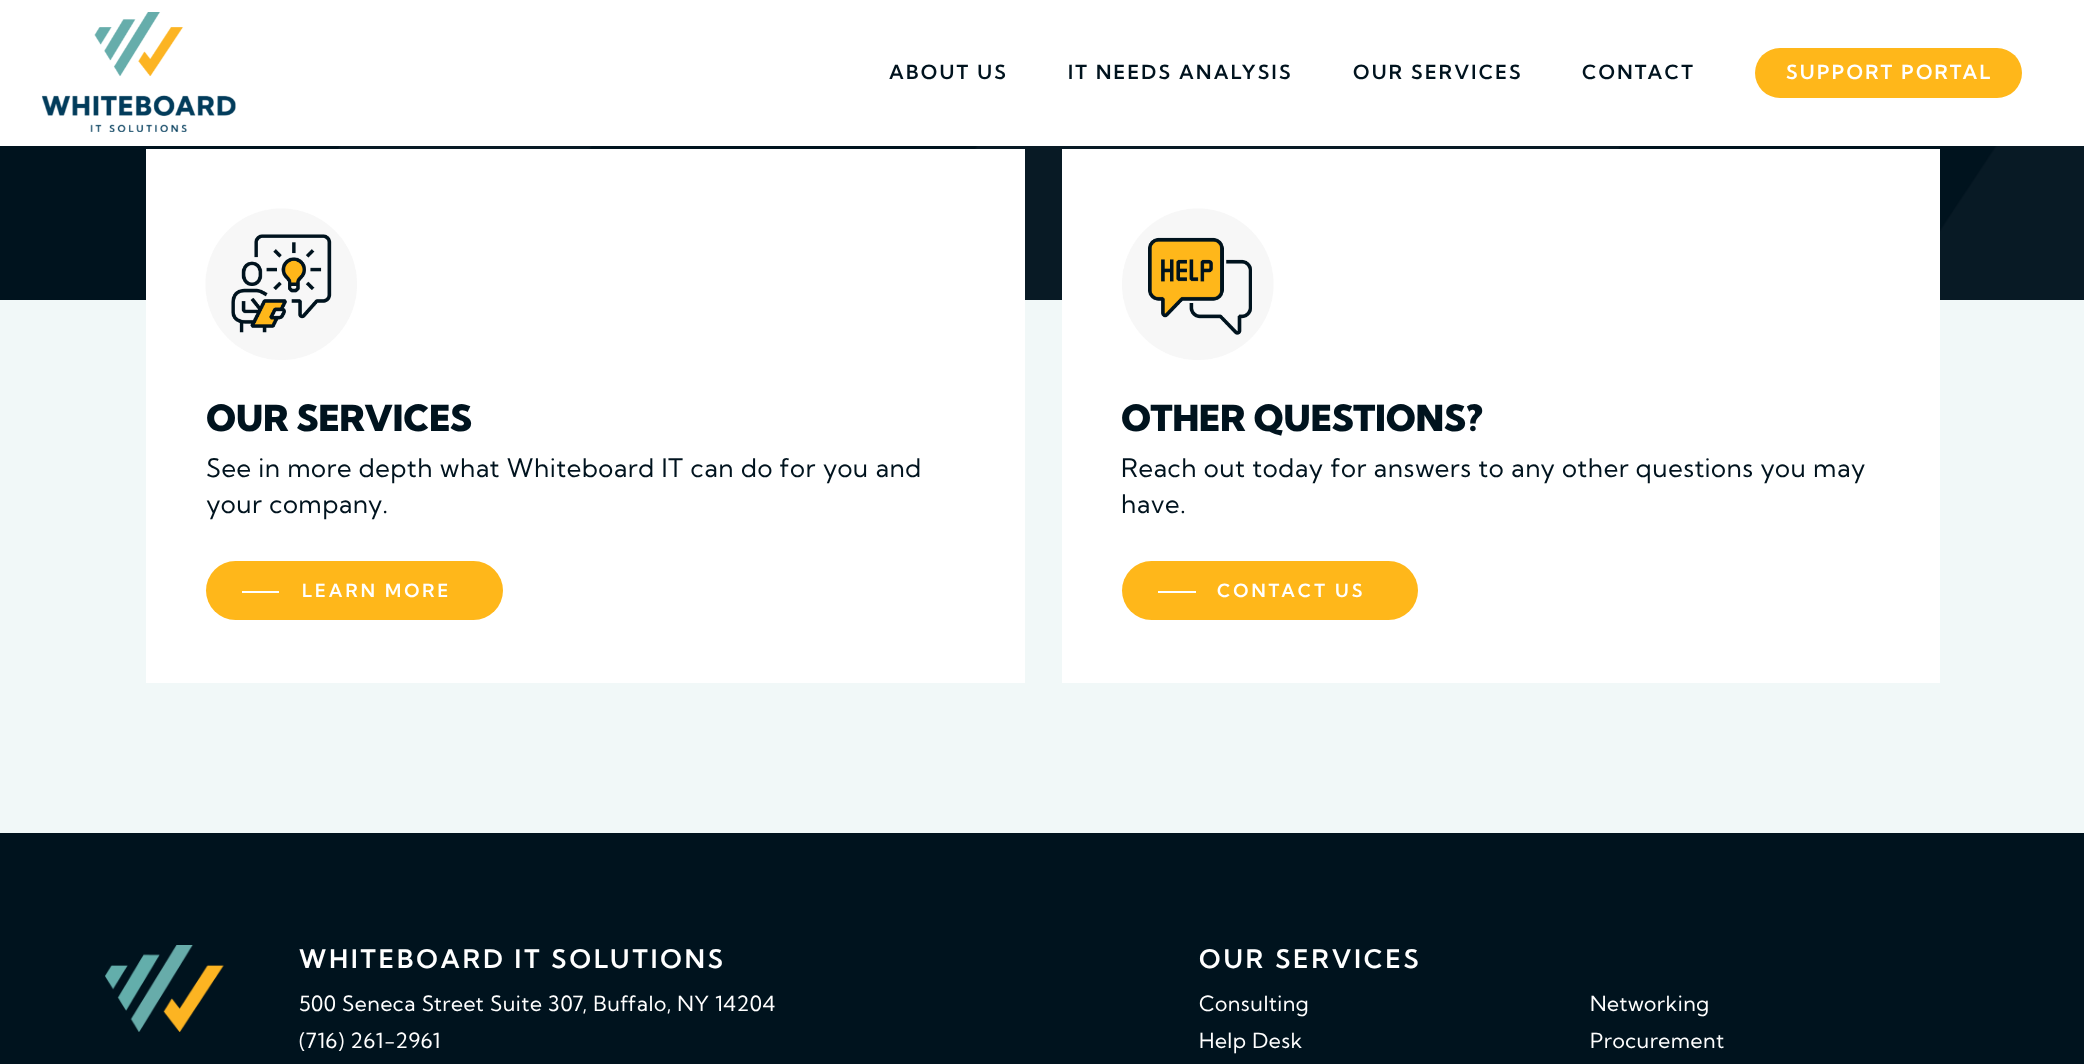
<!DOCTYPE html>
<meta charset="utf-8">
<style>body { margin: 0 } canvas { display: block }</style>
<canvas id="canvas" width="2084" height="1064"></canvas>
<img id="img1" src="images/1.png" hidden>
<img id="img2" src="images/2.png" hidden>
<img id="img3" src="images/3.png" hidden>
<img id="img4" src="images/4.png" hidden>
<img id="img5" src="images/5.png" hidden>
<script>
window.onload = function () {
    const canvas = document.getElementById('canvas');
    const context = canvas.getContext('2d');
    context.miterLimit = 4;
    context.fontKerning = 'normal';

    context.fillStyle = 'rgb(241, 248, 248)';
    context.fillRect(0, 0, 2084, 1064);
    context.fillStyle = 'rgb(255, 255, 255)';
    context.fillRect(0, 0, 2084, 146);
    context.drawImage(document.getElementById('img1'), 41, 12, 195, 120);
    context.fillStyle = 'rgb(255, 183, 26)';
    context.beginPath();
    context.roundRect(1755, 48, 267, 50, 25);
    context.fill();
    context.fillStyle = 'rgb(0, 19, 30)';
    context.fillRect(0, 146, 1997, 154);
    context.drawImage(document.getElementById('img2'), 337, 146, 1747, 154);
    context.fillStyle = 'rgb(255, 255, 255)';
    context.fillRect(146, 149, 879, 534);
    context.drawImage(document.getElementById('img3'), 205, 208, 152, 152);
    context.fillStyle = 'rgb(255, 183, 26)';
    context.beginPath();
    context.roundRect(206, 561, 297, 59, 29.5);
    context.fill();
    context.fillStyle = 'rgb(255, 255, 255)';
    context.fillRect(242, 591, 37, 2);
    context.fillRect(1062, 149, 878, 534);
    context.drawImage(document.getElementById('img4'), 1122, 208, 152, 152);
    context.fillStyle = 'rgb(255, 183, 26)';
    context.beginPath();
    context.roundRect(1122, 561, 296, 59, 29.5);
    context.fill();
    context.fillStyle = 'rgb(255, 255, 255)';
    context.fillRect(1158, 591, 38, 2);
    context.fillStyle = 'rgb(0, 19, 30)';
    context.fillRect(0, 833, 2084, 231);
    context.drawImage(document.getElementById('img5'), 105, 945, 119, 87);
    context.letterSpacing = '2.25px';
    context.font = '600 19.5px Kumbh Sans';
    context.fillText('ABOUT US', 889, 79);
    context.fillText('IT NEEDS ANALYSIS', 1068, 79);
    context.fillText('OUR SERVICES', 1353, 79);
    context.fillText('CONTACT', 1582, 79);
    context.fillStyle = 'rgb(255, 255, 255)';
    context.fillText('SUPPORT PORTAL', 1786, 79);
    context.letterSpacing = '0px';
    context.font = '900 36px Kumbh Sans';
    context.fillStyle = 'rgb(0, 19, 30)';
    context.fillText('OUR SERVICES', 206, 431);
    context.letterSpacing = '0.52px';
    context.font = '25.5px Kumbh Sans';
    context.fillText('See in more depth what Whiteboard IT can do for you and', 206, 477);
    context.fillText('your company.', 206, 513);
    context.letterSpacing = '3px';
    context.font = '600 18px Kumbh Sans';
    context.fillStyle = 'rgb(255, 255, 255)';
    context.fillText('LEARN MORE', 302, 597);
    context.letterSpacing = '0px';
    context.font = '900 36px Kumbh Sans';
    context.fillStyle = 'rgb(0, 19, 30)';
    context.fillText('OTHER QUESTIONS?', 1121, 431);
    context.letterSpacing = '0.52px';
    context.font = '25.5px Kumbh Sans';
    context.fillText('Reach out today for answers to any other questions you may', 1121, 477);
    context.fillText('have.', 1121, 513);
    context.letterSpacing = '3px';
    context.font = '600 18px Kumbh Sans';
    context.fillStyle = 'rgb(255, 255, 255)';
    context.fillText('CONTACT US', 1217, 597);
    context.font = '600 25.5px Kumbh Sans';
    context.fillText('WHITEBOARD IT SOLUTIONS', 299, 968);
    context.letterSpacing = '0.52px';
    context.font = '21px Kumbh Sans';
    context.fillText('500 Seneca Street Suite 307, Buffalo, NY 14204', 299, 1011);
    context.fillText('(716) 261-2961', 299, 1048);
    context.letterSpacing = '3px';
    context.font = '600 25.5px Kumbh Sans';
    context.fillText('OUR SERVICES', 1199, 968);
    context.letterSpacing = '0.52px';
    context.font = '21px Kumbh Sans';
    context.fillText('Consulting', 1199, 1011);
    context.fillText('Help Desk', 1199, 1048);
    context.fillText('Networking', 1590, 1011);
    context.fillText('Procurement', 1590, 1048);
};
</script>
